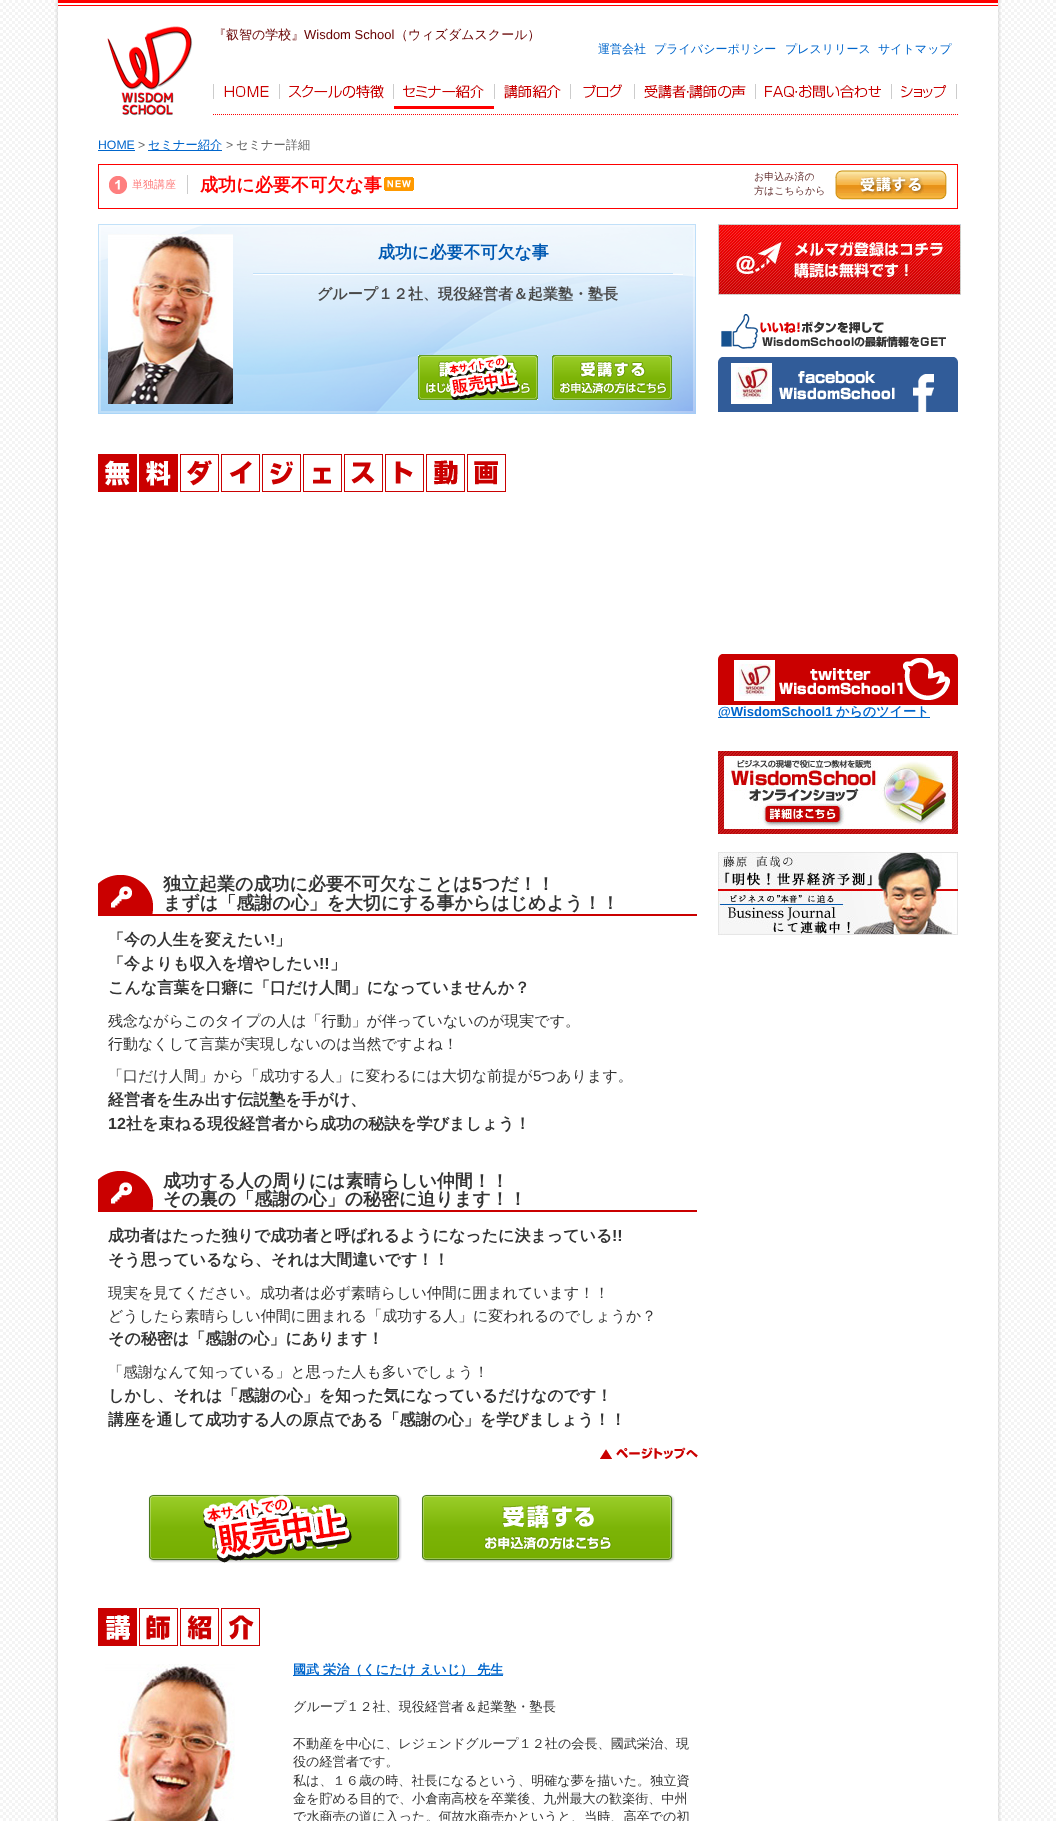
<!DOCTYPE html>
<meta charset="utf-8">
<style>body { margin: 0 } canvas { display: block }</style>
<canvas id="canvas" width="1056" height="1821"></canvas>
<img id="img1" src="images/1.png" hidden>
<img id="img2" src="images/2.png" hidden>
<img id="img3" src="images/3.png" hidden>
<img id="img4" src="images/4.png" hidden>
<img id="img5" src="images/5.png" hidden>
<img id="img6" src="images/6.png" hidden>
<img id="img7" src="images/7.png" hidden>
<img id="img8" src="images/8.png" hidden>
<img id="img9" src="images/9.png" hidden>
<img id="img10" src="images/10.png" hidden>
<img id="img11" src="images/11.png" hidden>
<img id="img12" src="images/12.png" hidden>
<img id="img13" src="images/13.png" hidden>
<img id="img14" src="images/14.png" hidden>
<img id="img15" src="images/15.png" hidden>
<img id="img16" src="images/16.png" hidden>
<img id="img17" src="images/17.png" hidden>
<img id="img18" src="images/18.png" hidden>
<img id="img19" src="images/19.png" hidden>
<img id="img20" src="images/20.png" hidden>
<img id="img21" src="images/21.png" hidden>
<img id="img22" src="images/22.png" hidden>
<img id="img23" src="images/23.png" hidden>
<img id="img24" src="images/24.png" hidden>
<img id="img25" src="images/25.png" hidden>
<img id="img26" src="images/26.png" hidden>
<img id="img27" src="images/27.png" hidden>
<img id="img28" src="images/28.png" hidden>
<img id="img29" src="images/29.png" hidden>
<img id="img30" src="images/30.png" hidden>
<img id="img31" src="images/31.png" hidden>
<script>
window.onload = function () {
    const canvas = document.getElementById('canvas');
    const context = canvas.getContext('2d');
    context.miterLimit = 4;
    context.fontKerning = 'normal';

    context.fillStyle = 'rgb(255, 255, 255)';
    context.fillRect(0, 0, 1056, 1821);
    context.drawImage(document.getElementById('img1'), 0, 0, 1056, 1821);
    context.drawImage(document.getElementById('img2'), 55, 0, 946, 1821);
    context.drawImage(document.getElementById('img3'), 58, 0, 940, 6);
    context.drawImage(document.getElementById('img4'), 107, 26, 86, 90);
    context.beginPath();
    context.moveTo(213, 114.5);
    context.lineTo(958, 114.5);
    context.strokeStyle = 'rgb(255, 0, 0)';
    context.setLineDash([1, 1]);
    context.stroke();
    context.fillStyle = 'rgb(204, 204, 204)';
    context.fillRect(213, 84, 1, 15);
    context.drawImage(document.getElementById('img5'), 224, 86, 45, 11);
    context.fillRect(279, 84, 1, 15);
    context.drawImage(document.getElementById('img6'), 289, 85, 95, 14);
    context.fillRect(393, 84, 1, 15);
    context.drawImage(document.getElementById('img7'), 403, 85, 81, 13);
    context.fillStyle = 'rgb(255, 0, 0)';
    context.fillRect(394, 106, 100, 3);
    context.fillStyle = 'rgb(204, 204, 204)';
    context.fillRect(494, 84, 1, 15);
    context.drawImage(document.getElementById('img8'), 504, 85, 57, 14);
    context.fillRect(570, 84, 1, 15);
    context.drawImage(document.getElementById('img9'), 583, 84, 39, 14);
    context.fillRect(634, 84, 1, 15);
    context.drawImage(document.getElementById('img10'), 644, 85, 102, 14);
    context.fillRect(755, 84, 1, 15);
    context.drawImage(document.getElementById('img11'), 765, 85, 116, 13);
    context.fillRect(956, 84, 1, 15);
    context.fillRect(891, 84, 1, 15);
    context.drawImage(document.getElementById('img12'), 901, 85, 46, 13);
    context.fillStyle = 'rgb(0, 102, 204)';
    context.fillRect(98, 150, 37, 1);
    context.fillRect(148, 150, 74, 1);
    context.strokeStyle = 'rgb(254, 0, 0)';
    context.setLineDash([]);
    context.strokeRect(98.5, 164.5, 859, 44);
    context.fillStyle = 'rgb(204, 204, 204)';
    context.fillRect(187, 175, 1, 19);
    context.drawImage(document.getElementById('img13'), 109, 176, 18, 18);
    context.drawImage(document.getElementById('img14'), 384, 177, 30, 14);
    context.drawImage(document.getElementById('img15'), 835, 170, 112, 30);
    context.drawImage(document.getElementById('img16'), 98, 224, 598, 190);
    context.drawImage(document.getElementById('img17'), 108, 234, 125, 170);
    context.fillStyle = 'rgb(192, 224, 249)';
    context.fillRect(253, 273, 420, 1);
    context.fillStyle = 'rgb(255, 255, 255)';
    context.fillRect(253, 274, 430, 1);
    context.drawImage(document.getElementById('img18'), 418, 355, 120, 45);
    context.drawImage(document.getElementById('img19'), 552, 355, 120, 45);
    context.drawImage(document.getElementById('img20'), 98, 454, 408, 38);
    context.drawImage(document.getElementById('img21'), 98, 875, 599, 41);
    context.drawImage(document.getElementById('img21'), 98, 1171, 599, 41);
    context.drawImage(document.getElementById('img22'), 600, 1447, 98, 12);
    context.drawImage(document.getElementById('img23'), 148, 1494, 254, 69);
    context.drawImage(document.getElementById('img24'), 421, 1494, 254, 69);
    context.drawImage(document.getElementById('img25'), 98, 1608, 162, 38);
    context.drawImage(document.getElementById('img26'), 105, 1664, 130, 157);
    context.fillStyle = 'rgb(0, 102, 204)';
    context.fillRect(293, 1675, 210, 1);
    context.drawImage(document.getElementById('img27'), 718, 224, 243, 71);
    context.drawImage(document.getElementById('img28'), 718, 314, 240, 98);
    context.drawImage(document.getElementById('img29'), 718, 654, 240, 51);
    context.fillRect(718, 717, 212, 1);
    context.drawImage(document.getElementById('img30'), 718, 751, 240, 83);
    context.drawImage(document.getElementById('img31'), 718, 852, 240, 83);
    context.font = '500 13px WenQuanYi Zen Hei';
    context.fillStyle = 'rgb(102, 0, 0)';
    context.fillText('『叡智の学校』', 213, 39);
    context.font = '13px Liberation Sans';
    context.fillText('Wisdom School', 304, 39);
    context.font = '500 13px WenQuanYi Zen Hei';
    context.fillText('（ウィズダムスクール）', 395, 39);
    context.font = '500 12px WenQuanYi Zen Hei';
    context.fillStyle = 'rgb(0, 102, 204)';
    context.fillText('運営会社', 598, 53);
    context.fillText('プライバシーポリシー', 654, 53);
    context.fillText('プレスリリース', 785, 53);
    context.fillText('サイトマップ', 878, 53);
    context.font = '12.25px Liberation Sans';
    context.fillText('HOME', 98, 149);
    context.fillStyle = 'rgb(102, 102, 102)';
    context.fillText('>', 138, 149);
    context.font = '500 12.25px WenQuanYi Zen Hei';
    context.fillStyle = 'rgb(0, 102, 204)';
    context.fillText('セミナー紹介', 148, 149);
    context.font = '12.25px Liberation Sans';
    context.fillStyle = 'rgb(102, 102, 102)';
    context.fillText('>', 226, 149);
    context.font = '500 12.25px WenQuanYi Zen Hei';
    context.fillText('セミナー詳細', 236, 149);
    context.font = '500 11px WenQuanYi Zen Hei';
    context.fillStyle = 'rgb(254, 127, 127)';
    context.fillText('単独講座', 132, 188);
    context.font = 'bold 18.1px WenQuanYi Zen Hei';
    context.fillStyle = 'rgb(254, 0, 0)';
    context.fillText('成功に必要不可欠な事', 200, 191);
    context.font = '500 10px WenQuanYi Zen Hei';
    context.fillStyle = 'rgb(102, 51, 51)';
    context.fillText('お申込み済の', 754, 180);
    context.fillText('方はこちらから', 754, 194);
    context.font = 'bold 17px WenQuanYi Zen Hei';
    context.fillStyle = 'rgb(0, 89, 178)';
    context.fillText('成功に必要不可欠な事', 378, 258);
    context.font = 'bold 15px WenQuanYi Zen Hei';
    context.fillStyle = 'rgb(73, 73, 73)';
    context.fillText('グループ１２社、現役経営者＆起業塾・塾長', 317, 299);
    context.font = 'bold 18px WenQuanYi Zen Hei';
    context.fillStyle = 'rgb(51, 51, 51)';
    context.fillText('独立起業の成功に必要不可欠なことは', 163, 890);
    context.font = 'bold 18px Liberation Sans';
    context.fillText('5', 472, 890);
    context.font = 'bold 18px WenQuanYi Zen Hei';
    context.fillText('つだ！！', 482, 890);
    context.fillText('まずは「感謝の心」を大切にする事からはじめよう！！', 163, 909);
    context.font = 'bold 16px WenQuanYi Zen Hei';
    context.fillText('「今の人生を変えたい', 108, 945);
    context.font = 'bold 16px Liberation Sans';
    context.fillText('!', 270, 945);
    context.font = 'bold 16px WenQuanYi Zen Hei';
    context.fillText('」', 275, 945);
    context.fillText('「今よりも収入を増やしたい', 108, 969);
    context.font = 'bold 16px Liberation Sans';
    context.fillText('!!', 319, 969);
    context.font = 'bold 16px WenQuanYi Zen Hei';
    context.fillText('」', 330, 969);
    context.fillText('こんな言葉を口癖に「口だけ人間」になっていませんか？', 108, 993);
    context.font = '500 15px WenQuanYi Zen Hei';
    context.fillText('残念ながらこのタイプの人は「行動」が伴っていないのが現実です。', 108, 1026);
    context.fillText('行動なくして言葉が実現しないのは当然ですよね！', 108, 1049);
    context.fillText('「口だけ人間」から「成功する人」に変わるには大切な前提が', 108, 1081);
    context.font = '15px Liberation Sans';
    context.fillText('5', 533, 1081);
    context.font = '500 15px WenQuanYi Zen Hei';
    context.fillText('つあります。', 541, 1081);
    context.font = 'bold 16px WenQuanYi Zen Hei';
    context.fillText('経営者を生み出す伝説塾を手がけ、', 108, 1105);
    context.font = 'bold 16px Liberation Sans';
    context.fillText('12', 108, 1129);
    context.font = 'bold 16px WenQuanYi Zen Hei';
    context.fillText('社を束ねる現役経営者から成功の秘訣を学びましょう！', 126, 1129);
    context.font = 'bold 18px WenQuanYi Zen Hei';
    context.fillText('成功する人の周りには素晴らしい仲間！！', 163, 1187);
    context.fillText('その裏の「感謝の心」の秘密に迫ります！！', 163, 1205);
    context.font = 'bold 16px WenQuanYi Zen Hei';
    context.fillText('成功者はたった独りで成功者と呼ばれるようになったに決まっている', 108, 1241);
    context.font = 'bold 16px Liberation Sans';
    context.fillText('!!', 612, 1241);
    context.font = 'bold 16px WenQuanYi Zen Hei';
    context.fillText('そう思っているなら、それは大間違いです！！', 108, 1265);
    context.font = '500 15px WenQuanYi Zen Hei';
    context.fillText('現実を見てください。成功者は必ず素晴らしい仲間に囲まれています！！', 108, 1298);
    context.fillText('どうしたら素晴らしい仲間に囲まれる「成功する人」に変われるのでしょうか？', 108, 1321);
    context.font = 'bold 16px WenQuanYi Zen Hei';
    context.fillText('その秘密は「感謝の心」にあります！', 108, 1344);
    context.font = '500 15px WenQuanYi Zen Hei';
    context.fillText('「感謝なんて知っている」と思った人も多いでしょう！', 108, 1377);
    context.font = 'bold 16px WenQuanYi Zen Hei';
    context.fillText('しかし、それは「感謝の心」を知った気になっているだけなのです！', 108, 1401);
    context.fillText('講座を通して成功する人の原点である「感謝の心」を学びましょう！！', 108, 1425);
    context.font = 'bold 13.1px WenQuanYi Zen Hei';
    context.fillStyle = 'rgb(0, 102, 204)';
    context.fillText('國武 栄治（くにたけ えいじ） 先生', 293, 1674);
    context.font = '500 13.1px WenQuanYi Zen Hei';
    context.fillStyle = 'rgb(51, 51, 51)';
    context.fillText('グループ１２社、現役経営者＆起業塾・塾長', 293, 1711);
    context.fillText('不動産を中心に、レジェンドグループ１２社の会長、國武栄治、現', 293, 1748);
    context.fillText('役の経営者です。', 293, 1766);
    context.fillText('私は、１６歳の時、社長になるという、明確な夢を描いた。独立資', 293, 1785);
    context.fillText('金を貯める目的で、小倉南高校を卒業後、九州最大の歓楽街、中州', 293, 1803);
    context.fillText('で水商売の道に入った。何故水商売かというと、当時、高卒での初', 293, 1821);
    context.font = 'bold 13.1px Liberation Sans';
    context.fillStyle = 'rgb(0, 102, 204)';
    context.fillText('@WisdomSchool1', 718, 716);
    context.font = 'bold 13.1px WenQuanYi Zen Hei';
    context.fillText('からのツイート', 836, 716);
};
</script>
